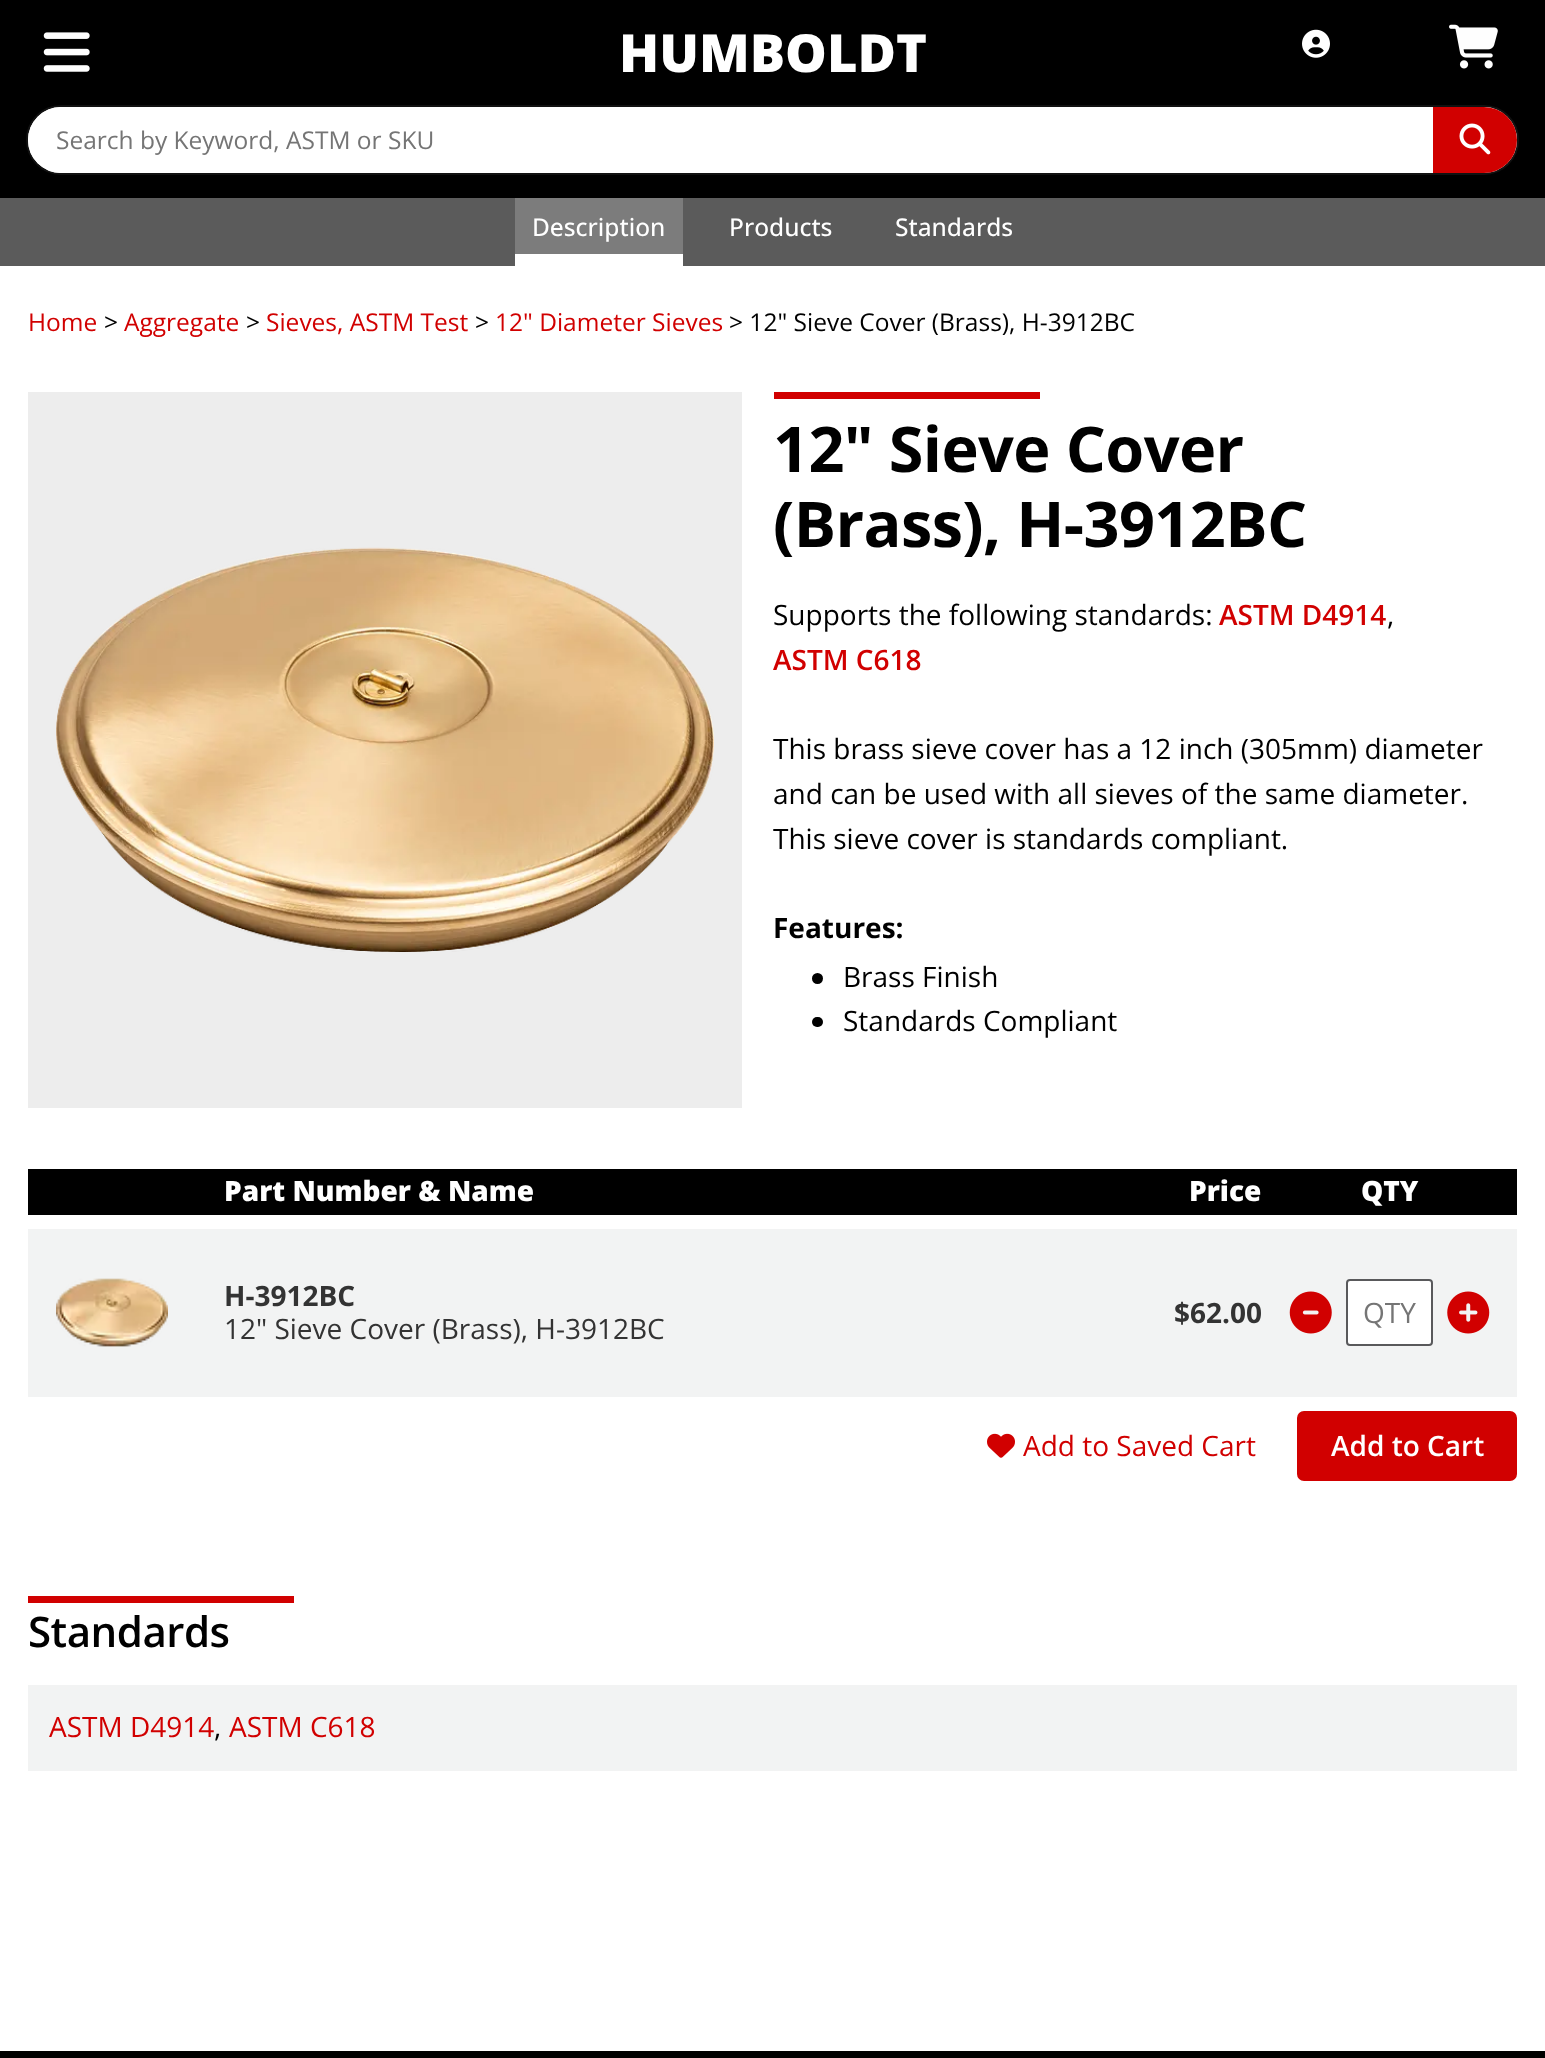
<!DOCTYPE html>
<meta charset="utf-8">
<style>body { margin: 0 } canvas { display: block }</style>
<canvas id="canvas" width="1545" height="2058"></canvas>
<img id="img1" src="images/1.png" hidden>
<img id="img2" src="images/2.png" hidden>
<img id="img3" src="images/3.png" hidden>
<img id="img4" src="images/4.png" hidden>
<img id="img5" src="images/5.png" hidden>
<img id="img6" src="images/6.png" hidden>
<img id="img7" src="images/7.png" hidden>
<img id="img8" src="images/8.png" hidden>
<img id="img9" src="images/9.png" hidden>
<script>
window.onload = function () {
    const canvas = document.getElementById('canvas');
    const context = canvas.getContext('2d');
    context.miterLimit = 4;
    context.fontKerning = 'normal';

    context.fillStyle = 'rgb(255, 255, 255)';
    context.fillRect(0, 0, 1545, 2058);
    context.fillStyle = 'rgb(0, 0, 0)';
    context.fillRect(0, 0, 1545, 198);
    context.drawImage(document.getElementById('img1'), 43, 32, 47, 40);
    context.drawImage(document.getElementById('img2'), 1302, 29, 28, 29);
    context.drawImage(document.getElementById('img3'), 1449, 24, 49, 45);
    context.fillStyle = 'rgb(255, 255, 255)';
    context.beginPath();
    context.roundRect(27, 106, 1491, 68, 34);
    context.fill();
    context.strokeStyle = 'rgb(17, 17, 17)';
    context.lineWidth = 2;
    context.stroke();
    context.beginPath();
    context.roundRect(28, 107, 1405, 66, [33, 4, 4, 33]);
    context.fill();
    context.fillStyle = 'rgb(209, 0, 0)';
    context.beginPath();
    context.roundRect(1433, 107, 84, 66, [0, 33, 33, 0]);
    context.fill();
    context.drawImage(document.getElementById('img4'), 1459, 123, 32, 32);
    context.fillStyle = 'rgb(91, 91, 91)';
    context.fillRect(0, 198, 1545, 68);
    context.fillStyle = 'rgb(124, 124, 124)';
    context.fillRect(515, 198, 168, 56);
    context.fillStyle = 'rgb(255, 255, 255)';
    context.fillRect(515, 254, 168, 12);
    context.fillStyle = 'rgb(237, 237, 237)';
    context.fillRect(28, 392, 714, 716);
    context.drawImage(document.getElementById('img5'), 56, 547, 658, 405);
    context.fillStyle = 'rgb(209, 0, 0)';
    context.fillRect(774, 392, 266, 7);
    context.fillStyle = 'rgb(0, 0, 0)';
    context.beginPath();
    context.arc(817.5, 978.5, 5.5, 0, 2 * Math.PI);
    context.fill();
    context.beginPath();
    context.roundRect(812, 1017, 11, 10, 5);
    context.fill();
    context.fillRect(28, 1169, 1489, 46);
    context.fillStyle = 'rgb(242, 243, 243)';
    context.fillRect(28, 1229, 1489, 168);
    context.drawImage(document.getElementById('img6'), 56, 1278, 112, 69);
    context.drawImage(document.getElementById('img7'), 1289, 1291, 43, 43);
    context.fillStyle = 'rgb(255, 255, 255)';
    context.beginPath();
    context.roundRect(1347, 1280, 85, 65, 3);
    context.fill();
    context.strokeStyle = 'rgb(89, 89, 91)';
    context.stroke();
    context.drawImage(document.getElementById('img8'), 1447, 1291, 43, 43);
    context.drawImage(document.getElementById('img9'), 987, 1433, 28, 25);
    context.fillStyle = 'rgb(209, 0, 0)';
    context.beginPath();
    context.roundRect(1298, 1412, 218, 68, 6);
    context.fill();
    context.strokeStyle = 'rgb(209, 0, 0)';
    context.stroke();
    context.fillRect(28, 1596, 266, 7);
    context.fillStyle = 'rgb(242, 243, 243)';
    context.fillRect(28, 1685, 1489, 86);
    context.fillStyle = 'rgb(0, 0, 0)';
    context.fillRect(0, 2051, 1545, 7);
    context.font = '800 52.5px Open Sans';
    context.fillStyle = 'rgb(255, 255, 255)';
    context.fillText('HUMBOLDT', 619, 72);
    context.font = '24.5px Open Sans';
    context.fillStyle = 'rgb(117, 117, 117)';
    context.fillText('Search by Keyword, ASTM or SKU', 56, 149);
    context.font = '500 24.5px Open Sans';
    context.fillStyle = 'rgb(255, 255, 255)';
    context.fillText('Description', 532, 236);
    context.fillText('Products', 729, 236);
    context.fillText('Standards', 895, 236);
    context.font = '24.5px Open Sans';
    context.fillStyle = 'rgb(209, 0, 0)';
    context.fillText('Home', 28, 331);
    context.fillStyle = 'rgb(0, 0, 0)';
    context.fillText('>', 104, 331);
    context.fillStyle = 'rgb(209, 0, 0)';
    context.fillText('Aggregate', 124, 331);
    context.fillStyle = 'rgb(0, 0, 0)';
    context.fillText('>', 246, 331);
    context.fillStyle = 'rgb(209, 0, 0)';
    context.fillText('Sieves, ASTM Test', 266, 331);
    context.fillStyle = 'rgb(0, 0, 0)';
    context.fillText('>', 475, 331);
    context.fillStyle = 'rgb(209, 0, 0)';
    context.fillText('12" Diameter Sieves', 495, 331);
    context.fillStyle = 'rgb(0, 0, 0)';
    context.fillText('> 12" Sieve Cover (Brass), H-3912BC', 729, 331);
    context.letterSpacing = '-0.6px';
    context.font = 'bold 63px Open Sans';
    context.fillText('12" Sieve Cover', 773, 472);
    context.fillText('(Brass), H-3912BC', 773, 547);
    context.letterSpacing = '0px';
    context.font = '28px Open Sans';
    context.fillText('Supports the following standards:', 773, 625);
    context.font = '600 28px Open Sans';
    context.fillStyle = 'rgb(209, 0, 0)';
    context.fillText('ASTM D4914', 1219, 625);
    context.font = '28px Open Sans';
    context.fillStyle = 'rgb(0, 0, 0)';
    context.fillText(',', 1387, 625);
    context.font = '600 28px Open Sans';
    context.fillStyle = 'rgb(209, 0, 0)';
    context.fillText('ASTM C618', 773, 670);
    context.font = '28px Open Sans';
    context.fillStyle = 'rgb(0, 0, 0)';
    context.fillText('This brass sieve cover has a 12 inch (305mm) diameter', 773, 759);
    context.fillText('and can be used with all sieves of the same diameter.', 773, 804);
    context.fillText('This sieve cover is standards compliant.', 773, 849);
    context.font = 'bold 28px Open Sans';
    context.fillText('Features:', 773, 938);
    context.font = '28px Open Sans';
    context.fillText('Brass Finish', 843, 987);
    context.fillText('Standards Compliant', 843, 1031);
    context.font = '800 28px Open Sans';
    context.fillStyle = 'rgb(255, 255, 255)';
    context.fillText('Part Number & Name', 224, 1201);
    context.fillText('Price', 1189, 1201);
    context.fillText('QTY', 1361, 1201);
    context.font = 'bold 28px Open Sans';
    context.fillStyle = 'rgb(51, 51, 51)';
    context.fillText('H-3912BC', 224, 1306);
    context.font = '28px Open Sans';
    context.fillText('12" Sieve Cover (Brass), H-3912BC', 224, 1339);
    context.font = 'bold 28px Open Sans';
    context.fillText('$62.00', 1174, 1323);
    context.font = '28px Open Sans';
    context.fillStyle = 'rgb(117, 117, 117)';
    context.fillText('QTY', 1363, 1323);
    context.fillStyle = 'rgb(209, 0, 0)';
    context.fillText('Add to Saved Cart', 1023, 1456);
    context.font = '600 28px Open Sans';
    context.fillStyle = 'rgb(255, 255, 255)';
    context.fillText('Add to Cart', 1331, 1456);
    context.letterSpacing = '-0.5px';
    context.font = '600 42px Open Sans';
    context.fillStyle = 'rgb(0, 0, 0)';
    context.fillText('Standards', 28, 1647);
    context.letterSpacing = '0px';
    context.font = '28px Open Sans';
    context.fillStyle = 'rgb(209, 0, 0)';
    context.fillText('ASTM D4914', 49, 1737);
    context.fillStyle = 'rgb(0, 0, 0)';
    context.fillText(',', 214, 1737);
    context.fillStyle = 'rgb(209, 0, 0)';
    context.fillText('ASTM C618', 229, 1737);
};
</script>
